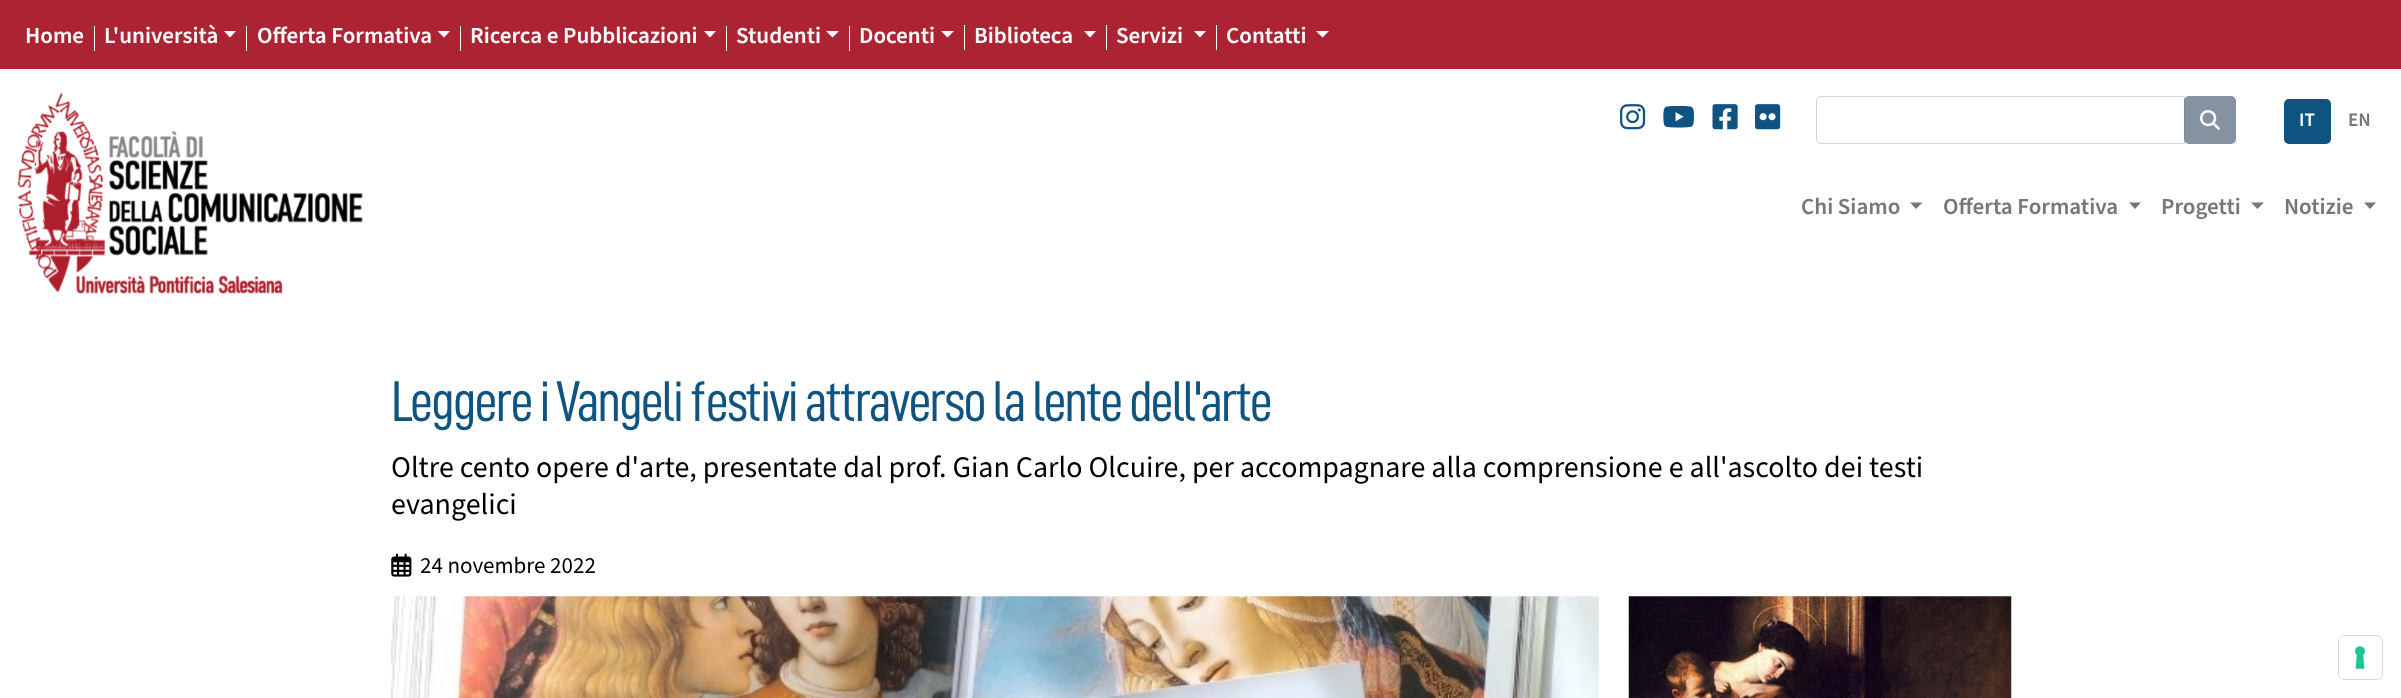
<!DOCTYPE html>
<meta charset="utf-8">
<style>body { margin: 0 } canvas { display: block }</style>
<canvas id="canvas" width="2401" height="698"></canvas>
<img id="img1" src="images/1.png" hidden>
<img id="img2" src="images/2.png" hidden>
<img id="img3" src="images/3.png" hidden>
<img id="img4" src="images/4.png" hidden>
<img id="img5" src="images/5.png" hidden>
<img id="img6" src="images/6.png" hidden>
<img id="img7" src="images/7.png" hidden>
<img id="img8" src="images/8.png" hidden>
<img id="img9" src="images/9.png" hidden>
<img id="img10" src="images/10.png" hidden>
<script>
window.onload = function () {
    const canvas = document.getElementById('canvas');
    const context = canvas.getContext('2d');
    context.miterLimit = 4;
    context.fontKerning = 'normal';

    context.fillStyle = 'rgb(255, 255, 255)';
    context.fillRect(0, 0, 2401, 698);
    context.fillStyle = 'rgb(172, 36, 51)';
    context.fillRect(0, 0, 2401, 69);
    context.fillStyle = 'rgb(255, 255, 255)';
    context.fillRect(94, 26, 1, 25);
    context.beginPath();
    context.moveTo(224, 31);
    context.lineTo(236, 31);
    context.lineTo(230, 37.5);
    context.closePath();
    context.fill();
    context.fillRect(246, 26, 1, 25);
    context.beginPath();
    context.moveTo(437.5, 31);
    context.lineTo(450, 31);
    context.lineTo(444, 37.5);
    context.closePath();
    context.fill();
    context.fillRect(460, 26, 1, 25);
    context.beginPath();
    context.moveTo(704, 31);
    context.lineTo(716, 31);
    context.lineTo(710, 37.5);
    context.closePath();
    context.fill();
    context.fillRect(726, 26, 1, 25);
    context.beginPath();
    context.moveTo(826, 31);
    context.lineTo(839, 31);
    context.lineTo(832.5, 37.5);
    context.closePath();
    context.fill();
    context.fillRect(849, 26, 1, 25);
    context.beginPath();
    context.moveTo(941, 31);
    context.lineTo(954, 31);
    context.lineTo(947.5, 37.5);
    context.closePath();
    context.fill();
    context.fillRect(964, 25, 1, 25);
    context.beginPath();
    context.moveTo(1084, 31);
    context.lineTo(1096, 31);
    context.lineTo(1090, 37.5);
    context.closePath();
    context.fill();
    context.fillRect(1106, 25, 1, 25);
    context.beginPath();
    context.moveTo(1194, 31);
    context.lineTo(1206, 31);
    context.lineTo(1200, 37.5);
    context.closePath();
    context.fill();
    context.fillRect(1216, 25, 1, 25);
    context.beginPath();
    context.moveTo(1316, 31);
    context.lineTo(1329, 31);
    context.lineTo(1322.5, 37.5);
    context.closePath();
    context.fill();
    context.drawImage(document.getElementById('img1'), 17, 92, 346, 202);
    context.drawImage(document.getElementById('img2'), 1620, 104, 26, 26);
    context.drawImage(document.getElementById('img3'), 1663, 105, 31, 23);
    context.drawImage(document.getElementById('img4'), 1712, 104, 26, 26);
    context.drawImage(document.getElementById('img5'), 1755, 104, 26, 26);
    context.beginPath();
    context.roundRect(1816.5, 96.5, 368, 47, [4.5, 0, 0, 4.5]);
    context.strokeStyle = 'rgb(206, 212, 218)';
    context.stroke();
    context.fillStyle = 'rgba(102, 119, 136, 0.8)';
    context.beginPath();
    context.roundRect(2184, 96, 52, 48, 5);
    context.fill();
    context.drawImage(document.getElementById('img6'), 2200, 110, 20, 20);
    context.fillStyle = 'rgb(15, 83, 128)';
    context.beginPath();
    context.roundRect(2284, 99, 47, 45, 5);
    context.fill();
    context.fillStyle = 'rgb(120, 118, 119)';
    context.beginPath();
    context.moveTo(1910, 202.5);
    context.lineTo(1922.5, 202.5);
    context.lineTo(1916, 209);
    context.closePath();
    context.fill();
    context.beginPath();
    context.moveTo(2129, 202.5);
    context.lineTo(2141, 202.5);
    context.lineTo(2135, 209);
    context.closePath();
    context.fill();
    context.beginPath();
    context.moveTo(2251, 202.5);
    context.lineTo(2264, 202.5);
    context.lineTo(2257.5, 209);
    context.closePath();
    context.fill();
    context.beginPath();
    context.moveTo(2364, 202.5);
    context.lineTo(2376, 202.5);
    context.lineTo(2370, 209);
    context.closePath();
    context.fill();
    context.drawImage(document.getElementById('img7'), 391, 553, 21, 24);
    context.drawImage(document.getElementById('img8'), 391, 596, 1208, 102);
    context.drawImage(document.getElementById('img9'), 1628, 596, 384, 102);
    context.beginPath();
    context.roundRect(2338.5, 635.5, 44, 44, 5.5);
    context.strokeStyle = 'rgb(217, 217, 217)';
    context.stroke();
    context.fillStyle = 'rgb(255, 255, 255)';
    context.beginPath();
    context.roundRect(2339, 636, 42, 43, 5);
    context.fill();
    context.drawImage(document.getElementById('img10'), 2355, 646, 10, 23);
    context.font = '600 23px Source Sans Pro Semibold';
    context.fillText('Home', 25, 43);
    context.fillText('L\'università', 104, 43);
    context.fillText('Offerta Formativa', 257, 43);
    context.fillText('Ricerca e Pubblicazioni', 470, 43);
    context.fillText('Studenti', 736, 43);
    context.fillText('Docenti', 859, 43);
    context.fillText('Biblioteca', 974, 43);
    context.fillText('Servizi', 1116, 43);
    context.fillText('Contatti', 1226, 43);
    context.font = '600 19px Source Sans Pro Semibold';
    context.fillText('IT', 2299, 126);
    context.fillStyle = 'rgb(120, 118, 119)';
    context.fillText('EN', 2348, 126);
    context.font = '600 23px Source Sans Pro Semibold';
    context.fillText('Chi Siamo', 1801, 214);
    context.fillText('Offerta Formativa', 1943, 214);
    context.fillText('Progetti', 2161, 214);
    context.fillText('Notizie', 2284, 214);
    context.letterSpacing = '-2.3px';
    context.font = '57.5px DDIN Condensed';
    context.fillStyle = 'rgb(15, 83, 128)';
    context.fillText('Leggere i Vangeli festivi attraverso la lente dell\'arte', 391, 421);
    context.letterSpacing = '0px';
    context.font = '30px Source Sans Pro';
    context.fillStyle = 'rgb(0, 0, 0)';
    context.fillText('Oltre cento opere d\'arte, presentate dal prof. Gian Carlo Olcuire, per accompagnare alla comprensione e all\'ascolto dei testi', 391, 477);
    context.fillText('evangelici', 391, 514);
    context.font = '23px Source Sans Pro';
    context.fillText('24 novembre 2022', 420, 573);
};
</script>
